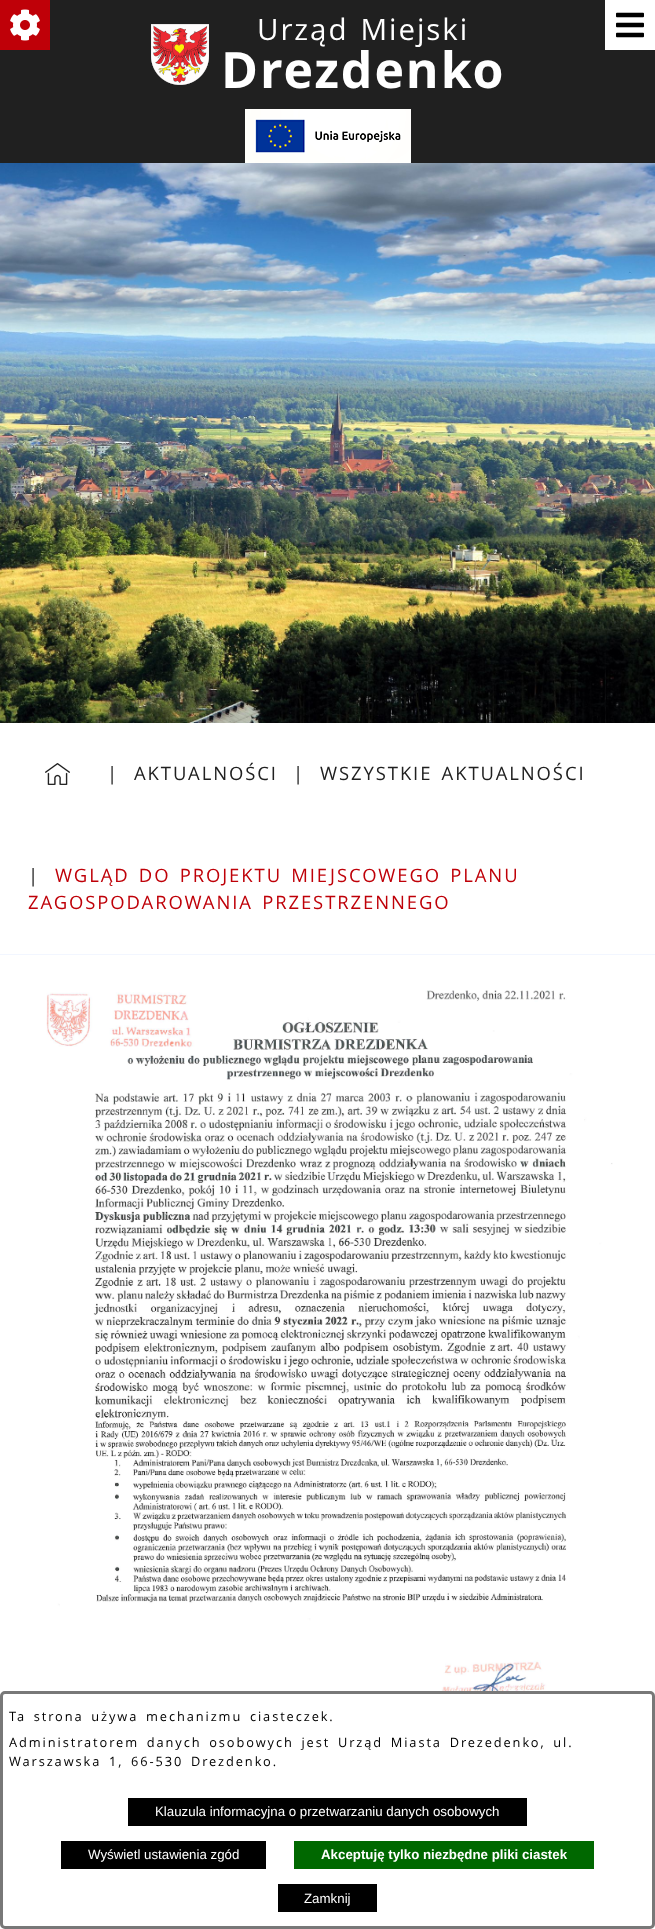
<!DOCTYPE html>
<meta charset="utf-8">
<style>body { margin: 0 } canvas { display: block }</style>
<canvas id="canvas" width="655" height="1929"></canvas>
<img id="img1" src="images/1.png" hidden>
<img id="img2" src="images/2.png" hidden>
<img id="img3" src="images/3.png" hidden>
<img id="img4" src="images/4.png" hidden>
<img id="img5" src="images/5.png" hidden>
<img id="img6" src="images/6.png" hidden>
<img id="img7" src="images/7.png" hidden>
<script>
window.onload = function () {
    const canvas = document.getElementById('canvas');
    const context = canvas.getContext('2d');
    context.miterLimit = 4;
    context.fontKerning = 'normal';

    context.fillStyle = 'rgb(255, 255, 255)';
    context.fillRect(0, 0, 655, 1929);
    context.fillStyle = 'rgb(32, 32, 32)';
    context.fillRect(0, 0, 655, 163);
    context.fillStyle = 'rgb(191, 0, 8)';
    context.fillRect(0, 0, 50, 50);
    context.drawImage(document.getElementById('img1'), 10, 9, 30, 32);
    context.drawImage(document.getElementById('img2'), 151, 24, 58, 61);
    context.drawImage(document.getElementById('img3'), 245, 109, 166, 54);
    context.fillStyle = 'rgb(255, 255, 255)';
    context.fillRect(605, 0, 50, 50);
    context.drawImage(document.getElementById('img4'), 616, 12, 28, 26);
    context.drawImage(document.getElementById('img5'), 0, 163, 655, 560);
    context.fillStyle = 'rgb(242, 246, 255)';
    context.fillRect(0, 954, 655, 1);
    context.drawImage(document.getElementById('img6'), 45, 763, 25, 22);
    context.drawImage(document.getElementById('img7'), 46, 990, 567, 701);
    context.beginPath();
    context.roundRect(1.5, 1692.5, 652, 235, 3.5);
    context.strokeStyle = 'rgb(120, 120, 120)';
    context.lineWidth = 3;
    context.stroke();
    context.fillStyle = 'rgb(0, 0, 0)';
    context.fillRect(128, 1798, 399, 28);
    context.fillRect(61, 1841, 205, 28);
    context.fillStyle = 'rgb(0, 104, 0)';
    context.fillRect(294, 1841, 300, 28);
    context.fillStyle = 'rgb(0, 0, 0)';
    context.fillRect(278, 1884, 99, 28);
    context.letterSpacing = '1.92px';
    context.wordSpacing = '2.5px';
    context.font = '29.5px Open Sans';
    context.fillStyle = 'rgb(255, 255, 255)';
    context.fillText('Urząd Miejski', 257, 40);
    context.wordSpacing = '0px';
    context.font = 'bold 50px Open Sans';
    context.fillText('Drezdenko', 221, 88);
    context.font = '18.45px Open Sans';
    context.fillStyle = 'rgb(32, 32, 32)';
    context.fillText('|', 107, 780);
    context.fillText('AKTUALNOŚCI', 134, 780);
    context.fillText('|', 293, 780);
    context.wordSpacing = '2.5px';
    context.fillText('WSZYSTKIE AKTUALNOŚCI', 320, 780);
    context.wordSpacing = '0px';
    context.fillText('|', 28, 882);
    context.wordSpacing = '2.5px';
    context.fillStyle = 'rgb(191, 0, 8)';
    context.fillText('WGLĄD DO PROJEKTU MIEJSCOWEGO PLANU', 55, 882);
    context.fillText('ZAGOSPODAROWANIA PRZESTRZENNEGO', 28, 909);
    context.font = '12.8px Open Sans';
    context.fillStyle = 'rgb(0, 0, 0)';
    context.fillText('Ta strona używa mechanizmu ciasteczek.', 9, 1721);
    context.fillText('Administratorem danych osobowych jest Urząd Miasta Drezedenko, ul.', 9, 1747);
    context.fillText('Warszawska 1, 66-530 Drezdenko.', 9, 1766);
    context.letterSpacing = '0px';
    context.wordSpacing = '0px';
    context.font = '13.3px Liberation Sans';
    context.fillStyle = 'rgb(255, 255, 255)';
    context.fillText('Klauzula informacyjna o przetwarzaniu danych osobowych', 155, 1816);
    context.fillText('Wyświetl ustawienia zgód', 88, 1859);
    context.font = 'bold 13.3px Liberation Sans';
    context.fillText('Akceptuję tylko niezbędne pliki ciastek', 321, 1859);
    context.font = '13.3px Liberation Sans';
    context.fillText('Zamknij', 304, 1903);
};
</script>
